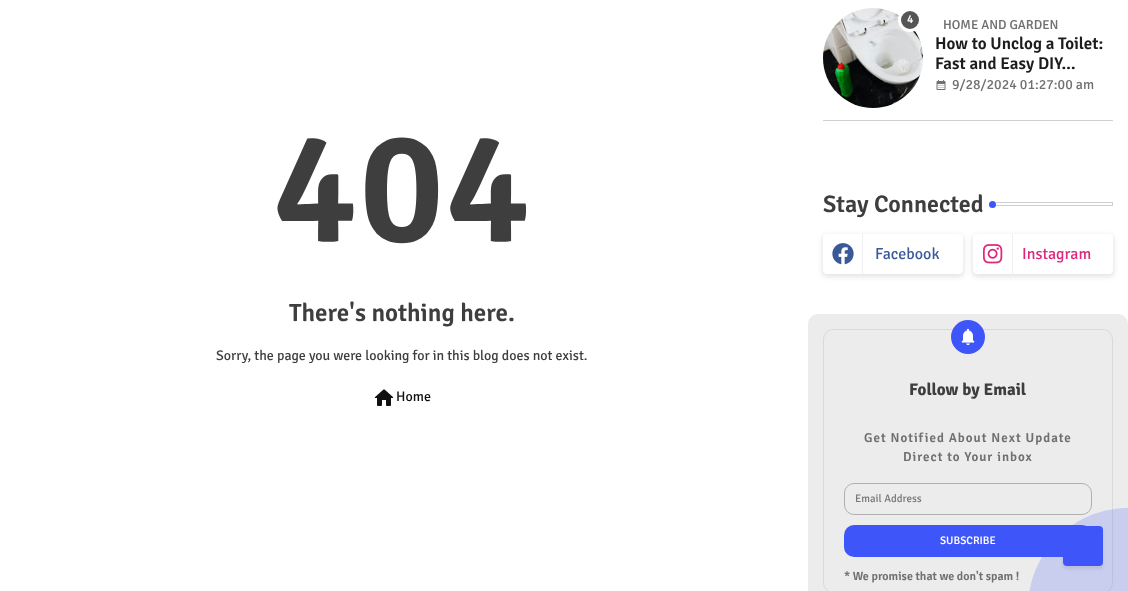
<!DOCTYPE html>
<meta charset="utf-8">
<style>body { margin: 0 } canvas { display: block }</style>
<canvas id="canvas" width="1128" height="591"></canvas>
<img id="img1" src="images/1.png" hidden>
<img id="img2" src="images/2.png" hidden>
<img id="img3" src="images/3.png" hidden>
<img id="img4" src="images/4.png" hidden>
<img id="img5" src="images/5.png" hidden>
<img id="img6" src="images/6.png" hidden>
<script>
window.onload = function () {
    const canvas = document.getElementById('canvas');
    const context = canvas.getContext('2d');
    context.miterLimit = 4;
    context.fontKerning = 'normal';

    context.fillStyle = 'rgb(255, 255, 255)';
    context.fillRect(0, 0, 1128, 591);
    context.drawImage(document.getElementById('img1'), 374, 389, 20, 17);
    context.fillStyle = 'rgb(208, 208, 208)';
    context.fillRect(823, 120, 290, 1);
    context.drawImage(document.getElementById('img2'), 823, 8, 100, 100);
    context.fillStyle = 'rgb(85, 85, 85)';
    context.beginPath();
    context.arc(910, 20, 10.5, 0, 2 * Math.PI);
    context.fill();
    context.strokeStyle = 'rgb(255, 255, 255)';
    context.lineWidth = 3;
    context.stroke();
    context.drawImage(document.getElementById('img3'), 936, 80, 10, 10);
    context.strokeStyle = 'rgb(207, 207, 207)';
    context.lineWidth = 1;
    context.strokeRect(823.5, 202.5, 289, 3);
    context.fillStyle = 'rgb(255, 255, 255)';
    context.fillRect(823, 202, 173, 4);
    context.fillStyle = 'rgb(62, 85, 250)';
    context.beginPath();
    context.arc(992.5, 204.5, 3.5, 0, 2 * Math.PI);
    context.fill();
    context.save();
    context.beginPath();
    context.moveTo(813, 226);
    context.lineTo(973, 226);
    context.lineTo(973, 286);
    context.lineTo(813, 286);
    context.closePath();
    context.moveTo(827, 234);
    context.lineTo(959, 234);
    context.bezierCurveTo(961, 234, 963, 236, 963, 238);
    context.lineTo(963, 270);
    context.bezierCurveTo(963, 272, 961, 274, 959, 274);
    context.lineTo(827, 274);
    context.bezierCurveTo(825, 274, 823, 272, 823, 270);
    context.lineTo(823, 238);
    context.bezierCurveTo(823, 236, 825, 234, 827, 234);
    context.closePath();
    context.clip('evenodd');
    context.fillStyle = 'rgba(0, 0, 0, 0.1)';
    context.filter = 'blur(2.5px)';
    context.beginPath();
    context.roundRect(822, 235, 142, 42, 5);
    context.fill();
    context.filter = 'none';
    context.restore();
    context.fillStyle = 'rgb(239, 239, 239)';
    context.fillRect(862, 234, 1, 40);
    context.drawImage(document.getElementById('img4'), 832, 243, 22, 22);
    context.save();
    context.beginPath();
    context.moveTo(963, 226);
    context.lineTo(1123, 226);
    context.lineTo(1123, 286);
    context.lineTo(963, 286);
    context.closePath();
    context.moveTo(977, 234);
    context.lineTo(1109, 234);
    context.bezierCurveTo(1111, 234, 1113, 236, 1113, 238);
    context.lineTo(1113, 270);
    context.bezierCurveTo(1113, 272, 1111, 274, 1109, 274);
    context.lineTo(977, 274);
    context.bezierCurveTo(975, 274, 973, 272, 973, 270);
    context.lineTo(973, 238);
    context.bezierCurveTo(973, 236, 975, 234, 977, 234);
    context.closePath();
    context.clip('evenodd');
    context.fillStyle = 'rgba(0, 0, 0, 0.1)';
    context.filter = 'blur(2.5px)';
    context.beginPath();
    context.roundRect(972, 235, 142, 42, 5);
    context.fill();
    context.filter = 'none';
    context.restore();
    context.fillRect(1012, 234, 1, 40);
    context.drawImage(document.getElementById('img5'), 983, 244, 20, 20);
    context.fillStyle = 'rgb(236, 236, 236)';
    context.beginPath();
    context.roundRect(808, 314, 320, 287, 10);
    context.fill();
    context.fillStyle = 'rgb(201, 206, 239)';
    context.beginPath();
    context.moveTo(1128, 508);
    context.lineTo(1128, 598);
    context.bezierCurveTo(1128, 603.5, 1123.5, 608, 1118, 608);
    context.lineTo(1028, 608);
    context.bezierCurveTo(1028, 553, 1073, 508, 1128, 508);
    context.closePath();
    context.fill();
    context.fillStyle = 'rgba(0, 0, 0, 0.08)';
    context.filter = 'blur(1.5px)';
    context.beginPath();
    context.roundRect(1063, 529, 40, 40, 4);
    context.fill();
    context.filter = 'none';
    context.fillStyle = 'rgb(62, 85, 250)';
    context.beginPath();
    context.roundRect(1063, 526, 40, 40, 4);
    context.fill();
    context.beginPath();
    context.roundRect(823.5, 329.5, 289, 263, 9.5);
    context.strokeStyle = 'rgba(112, 112, 112, 0.15)';
    context.stroke();
    context.beginPath();
    context.arc(968, 337, 17, 0, 2 * Math.PI);
    context.fill();
    context.drawImage(document.getElementById('img6'), 961, 328, 14, 18);
    context.beginPath();
    context.roundRect(844.5, 483.5, 247, 31, 9.5);
    context.strokeStyle = 'rgb(176, 176, 176)';
    context.stroke();
    context.beginPath();
    context.roundRect(844, 525, 248, 32, 10);
    context.fill();
    context.font = '600 160px Signika';
    context.fillStyle = 'rgb(62, 62, 62)';
    context.fillText('404', 272, 241);
    context.font = '600 25px Signika';
    context.fillText('There\'s nothing here.', 289, 321);
    context.font = '14px Signika';
    context.fillText('Sorry, the page you were looking for in this blog does not exist.', 216, 360);
    context.fillStyle = 'rgb(16, 16, 16)';
    context.fillText('Home', 396, 401);
    context.font = '500 12px Signika';
    context.fillStyle = 'rgb(255, 255, 255)';
    context.fillText('4', 907, 23);
    context.font = '500 13px Signika';
    context.fillStyle = 'rgb(112, 112, 112)';
    context.fillText('HOME AND GARDEN', 943, 29);
    context.font = '600 17px Signika';
    context.fillStyle = 'rgb(28, 28, 28)';
    context.fillText('How to Unclog a Toilet:', 935, 49);
    context.fillText('Fast and Easy DIY…', 935, 69);
    context.font = '14px Signika';
    context.fillStyle = 'rgb(112, 112, 112)';
    context.fillText('9/28/2024 01:27:00 am', 952, 89);
    context.font = '600 24px Signika';
    context.fillStyle = 'rgb(62, 62, 62)';
    context.fillText('Stay Connected', 823, 212);
    context.font = '16px Signika';
    context.fillStyle = 'rgb(59, 89, 153)';
    context.fillText('Facebook', 875, 259);
    context.fillStyle = 'rgb(221, 39, 123)';
    context.fillText('Instagram', 1022, 259);
    context.font = 'bold 17px Signika';
    context.fillStyle = 'rgb(62, 62, 62)';
    context.fillText('Follow by Email', 909, 395);
    context.letterSpacing = '1px';
    context.font = '600 13px Signika';
    context.fillStyle = 'rgb(112, 112, 112)';
    context.fillText('Get Notified About Next Update', 864, 442);
    context.fillText('Direct to Your inbox', 903, 461);
    context.letterSpacing = '0px';
    context.font = '11px Signika';
    context.fillStyle = 'rgb(119, 119, 119)';
    context.fillText('Email Address', 855, 502);
    context.font = '500 11px Signika';
    context.fillStyle = 'rgb(255, 255, 255)';
    context.fillText('SUBSCRIBE', 940, 544);
    context.font = '600 12px Signika';
    context.fillStyle = 'rgb(112, 112, 112)';
    context.fillText('* We promise that we don\'t spam !', 844, 580);
};
</script>
